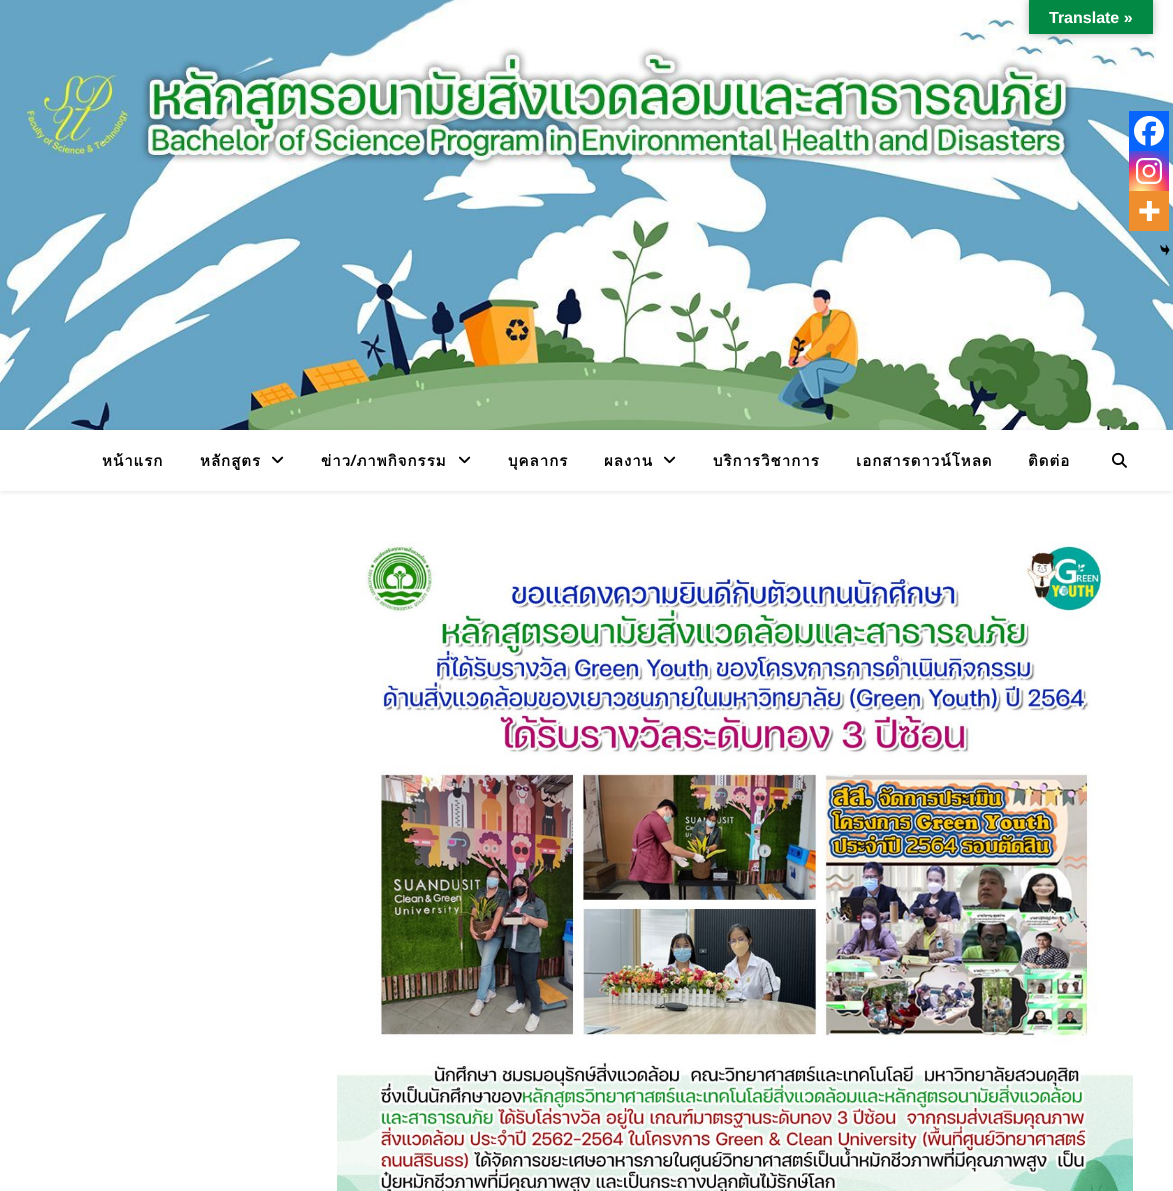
<!DOCTYPE html>
<meta charset="utf-8">
<style>body { margin: 0 } canvas { display: block }</style>
<canvas id="canvas" width="1173" height="1191"></canvas>
<img id="img1" src="images/6.png" hidden>
<img id="img2" src="images/1.png" hidden>
<img id="img3" src="images/2.png" hidden>
<img id="img4" src="images/3.png" hidden>
<img id="img5" src="images/4.png" hidden>
<img id="img6" src="images/5.png" hidden>
<img id="img7" src="images/7.png" hidden>
<img id="img8" src="images/8.png" hidden>
<script>
window.onload = function () {
    const canvas = document.getElementById('canvas');
    const context = canvas.getContext('2d');
    context.miterLimit = 4;
    context.fontKerning = 'normal';
    let gradient;

    context.fillStyle = 'rgb(255, 255, 255)';
    context.fillRect(0, 0, 1173, 1191);
    context.drawImage(document.getElementById('img1'), 0, 0, 1173, 430);
    context.fillStyle = 'rgba(0, 0, 0, 0.3)';
    context.filter = 'blur(4.5px)';
    context.beginPath();
    context.rect(1029, 0, 124, 34);
    context.fill();
    context.filter = 'none';
    context.fillStyle = 'rgb(2, 137, 67)';
    context.fillRect(1029, 0, 124, 34);
    context.fillStyle = 'rgb(7, 101, 254)';
    context.fillRect(1129, 111, 40, 40);
    context.drawImage(document.getElementById('img2'), 1134, 116, 30, 30);
    gradient = context.createRadialGradient(1141, 194, 0, 1141, 194, 51);
    gradient.addColorStop(0, 'rgb(253, 244, 151)');
    gradient.addColorStop(0.05, 'rgb(253, 244, 151)');
    gradient.addColorStop(0.45, 'rgb(253, 89, 73)');
    gradient.addColorStop(0.6, 'rgb(214, 36, 159)');
    gradient.addColorStop(0.9, 'rgb(40, 90, 235)');
    context.fillStyle = gradient;
    context.fillRect(1129, 151, 40, 40);
    context.drawImage(document.getElementById('img3'), 1136, 158, 26, 26);
    context.fillStyle = 'rgb(238, 142, 45)';
    context.fillRect(1129, 191, 40, 40);
    context.drawImage(document.getElementById('img4'), 1139, 201, 21, 20);
    context.drawImage(document.getElementById('img5'), 1160, 244, 10, 12);
    context.drawImage(document.getElementById('img6'), 337, 542, 796, 649);
    context.save();
    context.beginPath();
    context.moveTo(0, 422);
    context.lineTo(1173, 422);
    context.lineTo(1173, 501);
    context.lineTo(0, 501);
    context.closePath();
    context.moveTo(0, 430);
    context.lineTo(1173, 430);
    context.lineTo(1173, 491);
    context.lineTo(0, 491);
    context.closePath();
    context.clip('evenodd');
    context.fillStyle = 'rgba(0, 0, 0, 0.1)';
    context.filter = 'blur(2.5px)';
    context.beginPath();
    context.rect(0, 431, 1173, 61);
    context.fill();
    context.filter = 'none';
    context.restore();
    context.drawImage(document.getElementById('img7'), 272, 456, 12, 8);
    context.drawImage(document.getElementById('img7'), 459, 456, 12, 8);
    context.drawImage(document.getElementById('img7'), 664, 456, 12, 8);
    context.drawImage(document.getElementById('img8'), 1112, 452, 15, 16);
    context.font = 'bold 16px Liberation Sans';
    context.fillStyle = 'rgb(255, 255, 255)';
    context.fillText('Translate »', 1049, 23);
    context.letterSpacing = '1px';
    context.font = 'bold 15px Loma';
    context.fillStyle = 'rgb(0, 0, 0)';
    context.fillText('หน้าแรก', 102, 466);
    context.fillText('หลักสูตร', 200, 466);
    context.fillText('ข่าว/ภาพกิจกรรม', 321, 466);
    context.fillText('บุคลากร', 508, 466);
    context.fillText('ผลงาน', 604, 466);
    context.fillText('บริการวิชาการ', 713, 466);
    context.fillText('เอกสารดาวน์โหลด', 856, 466);
    context.fillText('ติดต่อ', 1028, 466);
};
</script>
